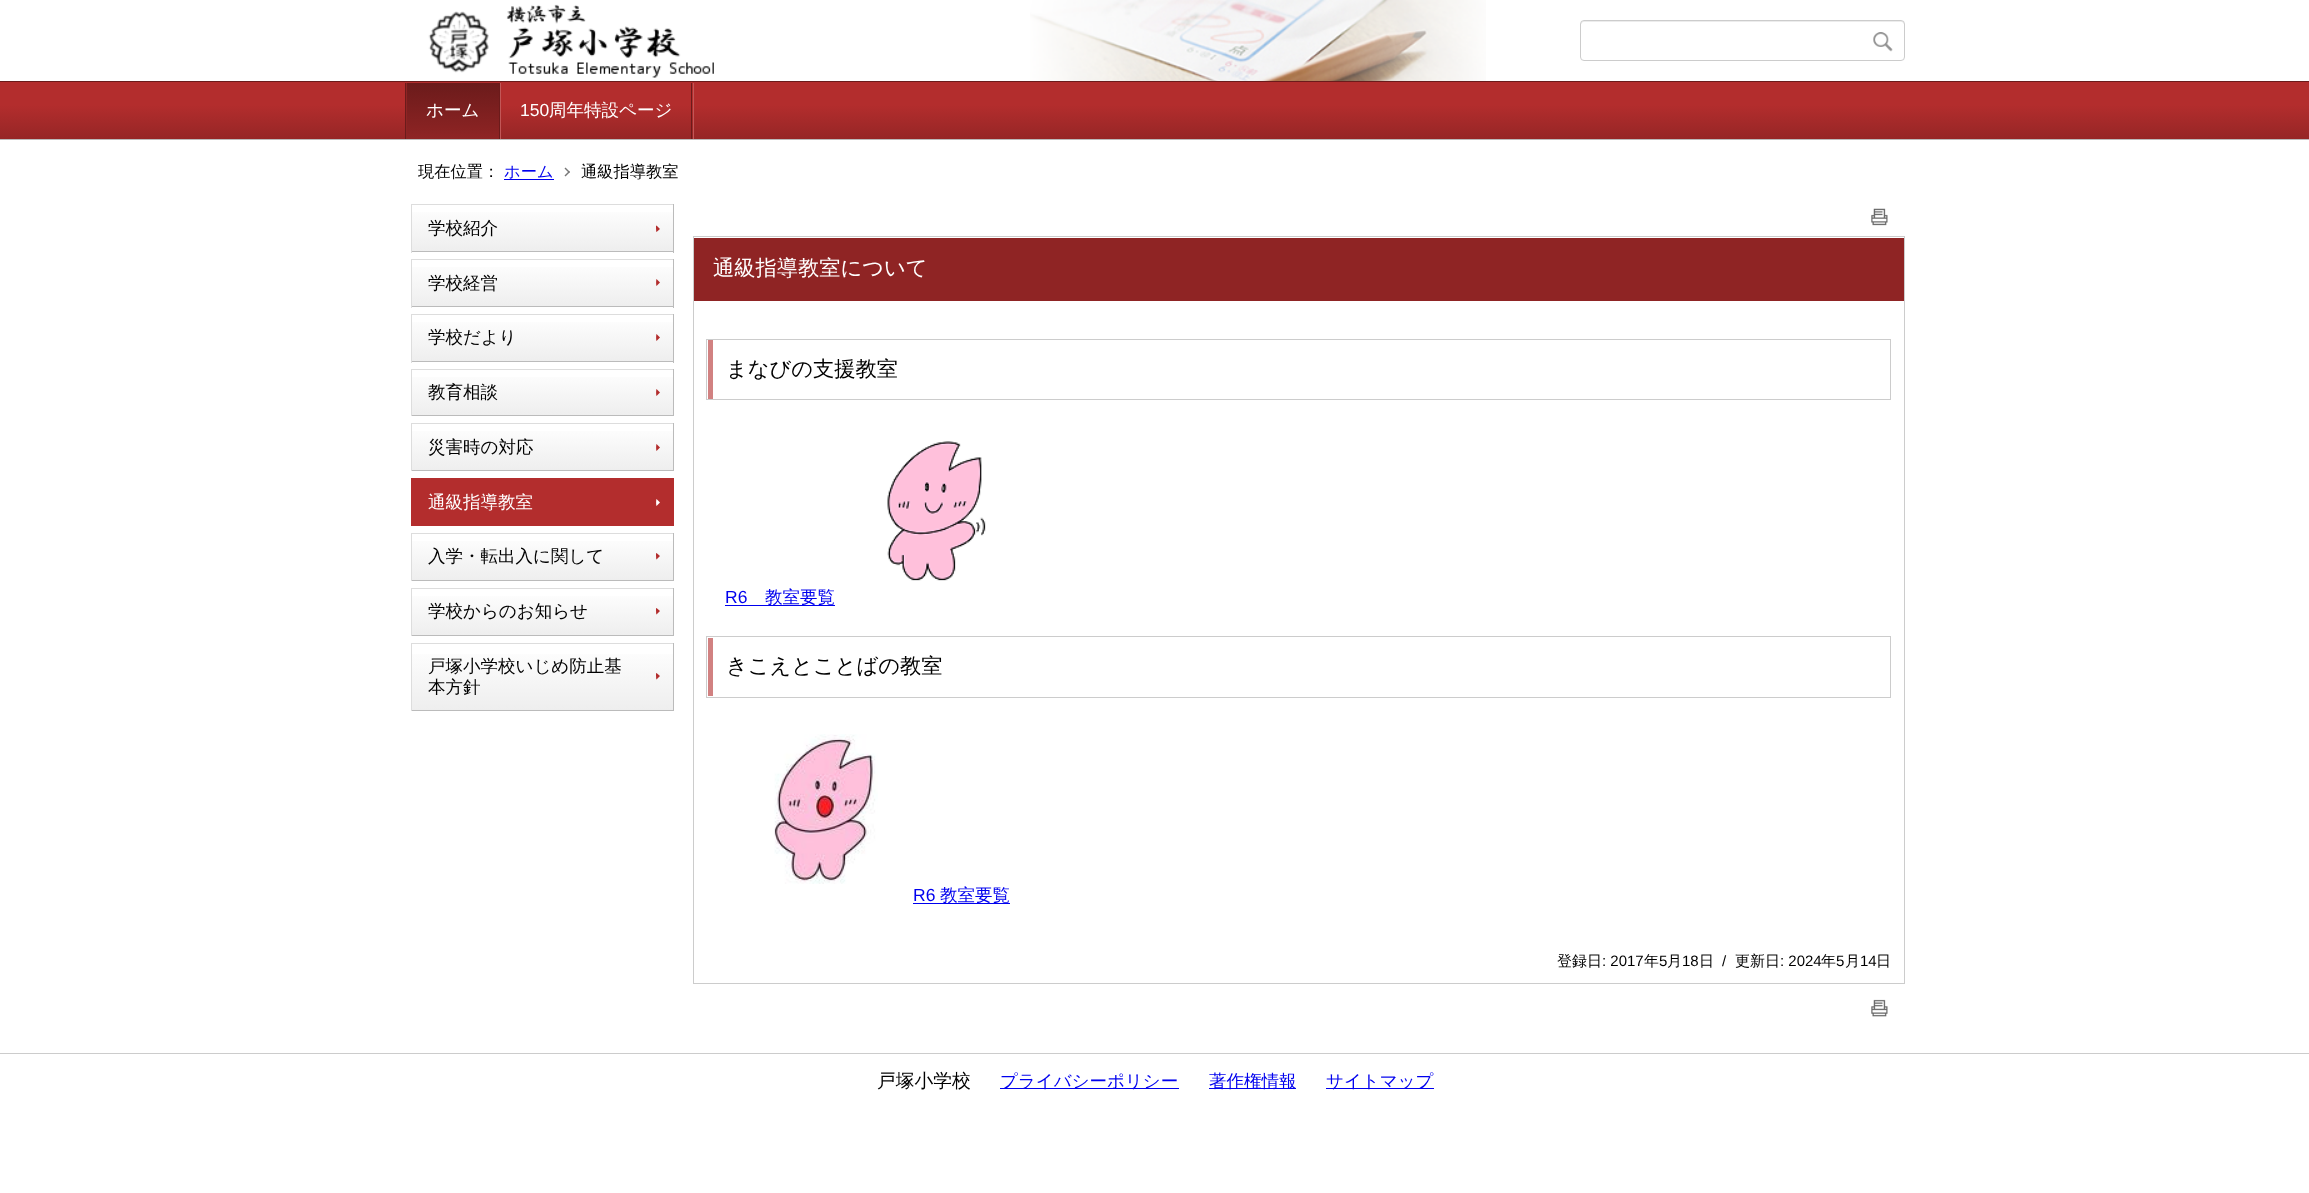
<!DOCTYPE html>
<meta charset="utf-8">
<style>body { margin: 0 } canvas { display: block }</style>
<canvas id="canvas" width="2309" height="1193"></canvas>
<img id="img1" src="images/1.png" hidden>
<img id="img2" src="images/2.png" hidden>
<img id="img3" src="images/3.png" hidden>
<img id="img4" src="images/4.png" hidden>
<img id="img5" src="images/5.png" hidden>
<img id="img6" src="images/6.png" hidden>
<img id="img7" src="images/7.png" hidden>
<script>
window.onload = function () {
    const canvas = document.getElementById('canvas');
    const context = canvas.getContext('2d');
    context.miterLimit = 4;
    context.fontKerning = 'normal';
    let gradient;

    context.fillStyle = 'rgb(255, 255, 255)';
    context.fillRect(0, 0, 2309, 1193);
    context.drawImage(document.getElementById('img1'), 1030, 0, 456, 81);
    context.drawImage(document.getElementById('img2'), 428, 4, 286, 74);
    context.fillStyle = 'rgb(236, 236, 236)';
    context.beginPath();
    context.moveTo(1584, 22);
    context.lineTo(1901, 22);
    context.bezierCurveTo(1903, 22, 1904, 24, 1904, 25);
    context.lineTo(1904, 24);
    context.bezierCurveTo(1904, 22, 1903, 21, 1902, 21);
    context.lineTo(1584, 21);
    context.bezierCurveTo(1582, 21, 1581, 22, 1581, 24);
    context.lineTo(1581, 25);
    context.bezierCurveTo(1581, 24, 1582, 22, 1584, 22);
    context.closePath();
    context.fill();
    context.beginPath();
    context.roundRect(1580.5, 20.5, 324, 40, 3.5);
    context.strokeStyle = 'rgb(204, 204, 204)';
    context.stroke();
    context.drawImage(document.getElementById('img3'), 1873, 32, 20, 20);
    context.fillStyle = 'rgb(179, 45, 45)';
    context.fillRect(0, 82, 2309, 23);
    context.fillStyle = 'rgb(107, 27, 27)';
    context.fillRect(0, 81, 2309, 1);
    context.fillStyle = 'rgb(187, 187, 187)';
    context.fillRect(0, 139, 2309, 1);
    gradient = context.createLinearGradient(1155, 105, 1155, 139);
    gradient.addColorStop(0, 'rgb(179, 45, 45)');
    gradient.addColorStop(1, 'rgb(150, 38, 38)');
    context.fillStyle = gradient;
    context.fillRect(0, 105, 2309, 34);
    context.fillStyle = 'rgb(107, 27, 27)';
    context.fillRect(405, 83, 1, 56);
    gradient = context.createLinearGradient(453, 83, 453, 139);
    gradient.addColorStop(0, 'rgb(107, 27, 27)');
    gradient.addColorStop(1, 'rgb(143, 36, 36)');
    context.fillStyle = gradient;
    context.fillRect(407, 83, 92, 56);
    context.fillStyle = 'rgb(107, 27, 27)';
    context.fillRect(499, 83, 1, 56);
    context.fillStyle = 'rgb(143, 36, 36)';
    context.fillRect(406, 83, 1, 56);
    context.fillStyle = 'rgb(194, 87, 87)';
    context.fillRect(693, 83, 1, 56);
    context.fillStyle = 'rgb(107, 27, 27)';
    context.fillRect(691, 83, 1, 56);
    context.fillStyle = 'rgb(194, 87, 87)';
    context.fillRect(500, 83, 1, 56);
    context.fillStyle = 'rgb(0, 0, 238)';
    context.fillRect(504, 179, 50, 1);
    context.fillStyle = 'rgb(119, 119, 119)';
    context.beginPath();
    context.moveTo(565.5, 167.5);
    context.lineTo(570, 172);
    context.lineTo(569, 173);
    context.lineTo(564.5, 168.5);
    context.closePath();
    context.fill();
    context.beginPath();
    context.moveTo(569, 171);
    context.lineTo(570, 172);
    context.lineTo(565.5, 176.5);
    context.lineTo(564.5, 175.5);
    context.closePath();
    context.fill();
    gradient = context.createLinearGradient(543, 205, 543, 251);
    gradient.addColorStop(0, 'rgb(255, 255, 255)');
    gradient.addColorStop(1, 'rgb(238, 238, 238)');
    context.fillStyle = gradient;
    context.fillRect(412, 212, 261, 39);
    context.fillStyle = 'rgb(221, 221, 221)';
    context.fillRect(411, 204, 263, 1);
    context.fillStyle = 'rgb(187, 187, 187)';
    context.fillRect(673, 204, 1, 49);
    context.fillRect(411, 251, 263, 1);
    context.fillStyle = 'rgb(221, 221, 221)';
    context.fillRect(411, 204, 1, 49);
    context.fillStyle = 'rgb(179, 45, 45)';
    context.beginPath();
    context.moveTo(656, 226);
    context.lineTo(656.5, 225.5);
    context.lineTo(660, 229);
    context.lineTo(656.5, 232);
    context.bezierCurveTo(656, 231.5, 656, 227, 656, 226);
    context.closePath();
    context.fill();
    gradient = context.createLinearGradient(543, 260, 543, 306);
    gradient.addColorStop(0, 'rgb(255, 255, 255)');
    gradient.addColorStop(1, 'rgb(238, 238, 238)');
    context.fillStyle = gradient;
    context.fillRect(412, 267, 261, 39);
    context.fillStyle = 'rgb(221, 221, 221)';
    context.fillRect(411, 259, 263, 1);
    context.fillStyle = 'rgb(187, 187, 187)';
    context.fillRect(673, 259, 1, 49);
    context.fillRect(411, 306, 263, 1);
    context.fillStyle = 'rgb(221, 221, 221)';
    context.fillRect(411, 259, 1, 49);
    context.fillStyle = 'rgb(179, 45, 45)';
    context.beginPath();
    context.moveTo(660, 282.5);
    context.lineTo(656.5, 286);
    context.bezierCurveTo(656, 285.5, 656, 280, 656.5, 279);
    context.closePath();
    context.fill();
    gradient = context.createLinearGradient(543, 315, 543, 361);
    gradient.addColorStop(0, 'rgb(255, 255, 255)');
    gradient.addColorStop(1, 'rgb(238, 238, 238)');
    context.fillStyle = gradient;
    context.fillRect(412, 322, 261, 39);
    context.fillStyle = 'rgb(221, 221, 221)';
    context.fillRect(411, 314, 263, 1);
    context.fillStyle = 'rgb(187, 187, 187)';
    context.fillRect(673, 314, 1, 49);
    context.fillRect(411, 361, 263, 1);
    context.fillStyle = 'rgb(221, 221, 221)';
    context.fillRect(411, 314, 1, 49);
    context.fillStyle = 'rgb(179, 45, 45)';
    context.beginPath();
    context.moveTo(660, 337.5);
    context.lineTo(656.5, 341);
    context.bezierCurveTo(656, 340.5, 656, 335, 656.5, 334);
    context.closePath();
    context.fill();
    gradient = context.createLinearGradient(543, 370, 543, 415);
    gradient.addColorStop(0, 'rgb(255, 255, 255)');
    gradient.addColorStop(1, 'rgb(238, 238, 238)');
    context.fillStyle = gradient;
    context.fillRect(412, 377, 261, 38);
    context.fillStyle = 'rgb(221, 221, 221)';
    context.fillRect(411, 369, 263, 1);
    context.fillStyle = 'rgb(187, 187, 187)';
    context.fillRect(673, 369, 1, 47);
    context.fillRect(411, 415, 263, 1);
    context.fillStyle = 'rgb(221, 221, 221)';
    context.fillRect(411, 369, 1, 47);
    context.fillStyle = 'rgb(179, 45, 45)';
    context.beginPath();
    context.moveTo(660, 392.5);
    context.lineTo(656.5, 396);
    context.bezierCurveTo(656, 395.5, 656, 390, 656.5, 389);
    context.closePath();
    context.fill();
    gradient = context.createLinearGradient(543, 424, 543, 470);
    gradient.addColorStop(0, 'rgb(255, 255, 255)');
    gradient.addColorStop(1, 'rgb(238, 238, 238)');
    context.fillStyle = gradient;
    context.fillRect(412, 431, 261, 39);
    context.fillStyle = 'rgb(221, 221, 221)';
    context.fillRect(411, 423, 263, 1);
    context.fillStyle = 'rgb(187, 187, 187)';
    context.fillRect(673, 423, 1, 48);
    context.fillRect(411, 470, 263, 1);
    context.fillStyle = 'rgb(221, 221, 221)';
    context.fillRect(411, 423, 1, 48);
    context.fillStyle = 'rgb(179, 45, 45)';
    context.beginPath();
    context.moveTo(660, 447.5);
    context.lineTo(656.5, 451);
    context.bezierCurveTo(656, 450.5, 656, 445, 656.5, 444);
    context.closePath();
    context.fill();
    context.fillRect(411, 478, 263, 48);
    context.fillStyle = 'rgb(255, 255, 255)';
    context.beginPath();
    context.moveTo(660, 502.5);
    context.lineTo(656.5, 506);
    context.bezierCurveTo(656, 505.5, 656, 500, 656.5, 499);
    context.closePath();
    context.fill();
    gradient = context.createLinearGradient(543, 534, 543, 580);
    gradient.addColorStop(0, 'rgb(255, 255, 255)');
    gradient.addColorStop(1, 'rgb(238, 238, 238)');
    context.fillStyle = gradient;
    context.fillRect(412, 541, 261, 39);
    context.fillStyle = 'rgb(221, 221, 221)';
    context.fillRect(411, 533, 263, 1);
    context.fillStyle = 'rgb(187, 187, 187)';
    context.fillRect(673, 533, 1, 48);
    context.fillRect(411, 580, 263, 1);
    context.fillStyle = 'rgb(221, 221, 221)';
    context.fillRect(411, 533, 1, 48);
    context.fillStyle = 'rgb(179, 45, 45)';
    context.beginPath();
    context.moveTo(656, 553.5);
    context.lineTo(656.5, 553);
    context.lineTo(660, 556);
    context.lineTo(656.5, 559.5);
    context.bezierCurveTo(656, 559, 656, 554.5, 656, 553.5);
    context.closePath();
    context.fill();
    gradient = context.createLinearGradient(543, 589, 543, 635);
    gradient.addColorStop(0, 'rgb(255, 255, 255)');
    gradient.addColorStop(1, 'rgb(238, 238, 238)');
    context.fillStyle = gradient;
    context.fillRect(412, 596, 261, 39);
    context.fillStyle = 'rgb(221, 221, 221)';
    context.fillRect(411, 588, 263, 1);
    context.fillStyle = 'rgb(187, 187, 187)';
    context.fillRect(673, 588, 1, 48);
    context.fillRect(411, 635, 263, 1);
    context.fillStyle = 'rgb(221, 221, 221)';
    context.fillRect(411, 588, 1, 48);
    context.fillStyle = 'rgb(179, 45, 45)';
    context.beginPath();
    context.moveTo(656, 608.5);
    context.lineTo(656.5, 608);
    context.lineTo(660, 611);
    context.lineTo(656.5, 614.5);
    context.bezierCurveTo(656, 614, 656, 609.5, 656, 608.5);
    context.closePath();
    context.fill();
    gradient = context.createLinearGradient(543, 644, 543, 710);
    gradient.addColorStop(0, 'rgb(255, 255, 255)');
    gradient.addColorStop(1, 'rgb(238, 238, 238)');
    context.fillStyle = gradient;
    context.fillRect(412, 654, 261, 56);
    context.fillStyle = 'rgb(221, 221, 221)';
    context.fillRect(411, 643, 263, 1);
    context.fillStyle = 'rgb(187, 187, 187)';
    context.fillRect(673, 643, 1, 68);
    context.fillRect(411, 710, 263, 1);
    context.fillStyle = 'rgb(221, 221, 221)';
    context.fillRect(411, 643, 1, 68);
    context.fillStyle = 'rgb(179, 45, 45)';
    context.beginPath();
    context.moveTo(656, 673.5);
    context.lineTo(656.5, 673);
    context.lineTo(660, 676);
    context.lineTo(656.5, 679.5);
    context.bezierCurveTo(656, 679, 656, 674.5, 656, 673.5);
    context.closePath();
    context.fill();
    context.drawImage(document.getElementById('img4'), 1871, 208, 17, 18);
    context.strokeRect(693.5, 236.5, 1211, 747);
    context.fillStyle = 'rgb(143, 36, 36)';
    context.fillRect(694, 238, 1210, 63);
    context.strokeRect(706.5, 339.5, 1184, 60);
    context.fillStyle = 'rgb(209, 129, 129)';
    context.fillRect(708, 340, 5, 59);
    context.drawImage(document.getElementById('img5'), 887, 441, 99, 140);
    context.fillStyle = 'rgb(0, 0, 238)';
    context.fillRect(725, 605, 110, 1);
    context.strokeRect(706.5, 636.5, 1184, 61);
    context.fillStyle = 'rgb(209, 129, 129)';
    context.fillRect(708, 638, 5, 58);
    context.drawImage(document.getElementById('img6'), 774, 734, 104, 150);
    context.fillStyle = 'rgb(0, 0, 238)';
    context.fillRect(913, 903, 97, 1);
    context.drawImage(document.getElementById('img7'), 1871, 999, 17, 18);
    context.fillStyle = 'rgb(204, 204, 204)';
    context.fillRect(0, 1053, 2309, 1);
    context.fillStyle = 'rgb(0, 0, 238)';
    context.fillRect(1000, 1088, 179, 1);
    context.fillRect(1209, 1088, 87, 1);
    context.fillRect(1326, 1088, 108, 1);
    context.font = '500 17.5px WenQuanYi Zen Hei';
    context.fillStyle = 'rgb(255, 255, 255)';
    context.fillText('ホーム', 426, 116);
    context.font = '17.5px Liberation Sans';
    context.fillText('150', 520, 116);
    context.font = '500 17.5px WenQuanYi Zen Hei';
    context.fillText('周年特設ページ', 549, 116);
    context.font = '500 16.25px WenQuanYi Zen Hei';
    context.fillStyle = 'rgb(0, 0, 0)';
    context.fillText('現在位置：', 418, 177);
    context.fillStyle = 'rgb(0, 0, 238)';
    context.fillText('ホーム', 504, 177);
    context.fillStyle = 'rgb(0, 0, 0)';
    context.fillText('通級指導教室', 581, 177);
    context.font = '500 17.5px WenQuanYi Zen Hei';
    context.fillText('学校紹介', 428, 234);
    context.fillText('学校経営', 428, 289);
    context.fillText('学校だより', 428, 343);
    context.fillText('教育相談', 428, 398);
    context.fillText('災害時の対応', 428, 453);
    context.fillStyle = 'rgb(255, 255, 255)';
    context.fillText('通級指導教室', 428, 508);
    context.fillStyle = 'rgb(0, 0, 0)';
    context.fillText('入学・転出入に関して', 428, 562);
    context.fillText('学校からのお知らせ', 428, 617);
    context.fillText('戸塚小学校いじめ防止基', 428, 672);
    context.fillText('本方針', 428, 693);
    context.font = '500 21.25px WenQuanYi Zen Hei';
    context.fillStyle = 'rgb(255, 255, 255)';
    context.fillText('通級指導教室について', 713, 275);
    context.fillStyle = 'rgb(0, 0, 0)';
    context.fillText('まなびの支援教室', 726, 376);
    context.font = '17.5px Liberation Sans';
    context.fillStyle = 'rgb(0, 0, 238)';
    context.fillText('R6', 725, 603);
    context.font = '500 17.5px WenQuanYi Zen Hei';
    context.fillText('教室要覧', 765, 603);
    context.font = '500 21.25px WenQuanYi Zen Hei';
    context.fillStyle = 'rgb(0, 0, 0)';
    context.fillText('きこえとことばの教室', 726, 673);
    context.font = '17.5px Liberation Sans';
    context.fillStyle = 'rgb(0, 0, 238)';
    context.fillText('R6', 913, 901);
    context.font = '500 17.5px WenQuanYi Zen Hei';
    context.fillText('教室要覧', 940, 901);
    context.font = '500 15px WenQuanYi Zen Hei';
    context.fillStyle = 'rgb(0, 0, 0)';
    context.fillText('登録日', 1557, 966);
    context.font = '15px Liberation Sans';
    context.fillText(': 2017', 1602, 966);
    context.font = '500 15px WenQuanYi Zen Hei';
    context.fillText('年', 1644, 966);
    context.font = '15px Liberation Sans';
    context.fillText('5', 1659, 966);
    context.font = '500 15px WenQuanYi Zen Hei';
    context.fillText('月', 1667, 966);
    context.font = '15px Liberation Sans';
    context.fillText('18', 1682, 966);
    context.font = '500 15px WenQuanYi Zen Hei';
    context.fillText('日', 1699, 966);
    context.font = '15px Liberation Sans';
    context.fillText('/', 1722, 966);
    context.font = '500 15px WenQuanYi Zen Hei';
    context.fillText('更新日', 1735, 966);
    context.font = '15px Liberation Sans';
    context.fillText(': 2024', 1780, 966);
    context.font = '500 15px WenQuanYi Zen Hei';
    context.fillText('年', 1821, 966);
    context.font = '15px Liberation Sans';
    context.fillText('5', 1836, 966);
    context.font = '500 15px WenQuanYi Zen Hei';
    context.fillText('月', 1845, 966);
    context.font = '15px Liberation Sans';
    context.fillText('14', 1860, 966);
    context.font = '500 15px WenQuanYi Zen Hei';
    context.fillText('日', 1876, 966);
    context.font = '500 18.75px WenQuanYi Zen Hei';
    context.fillText('戸塚小学校', 877, 1087);
    context.font = '500 17.5px WenQuanYi Zen Hei';
    context.fillStyle = 'rgb(0, 0, 238)';
    context.fillText('プライバシーポリシー', 1000, 1087);
    context.fillText('著作権情報', 1209, 1087);
    context.fillText('サイトマップ', 1326, 1087);
};
</script>
